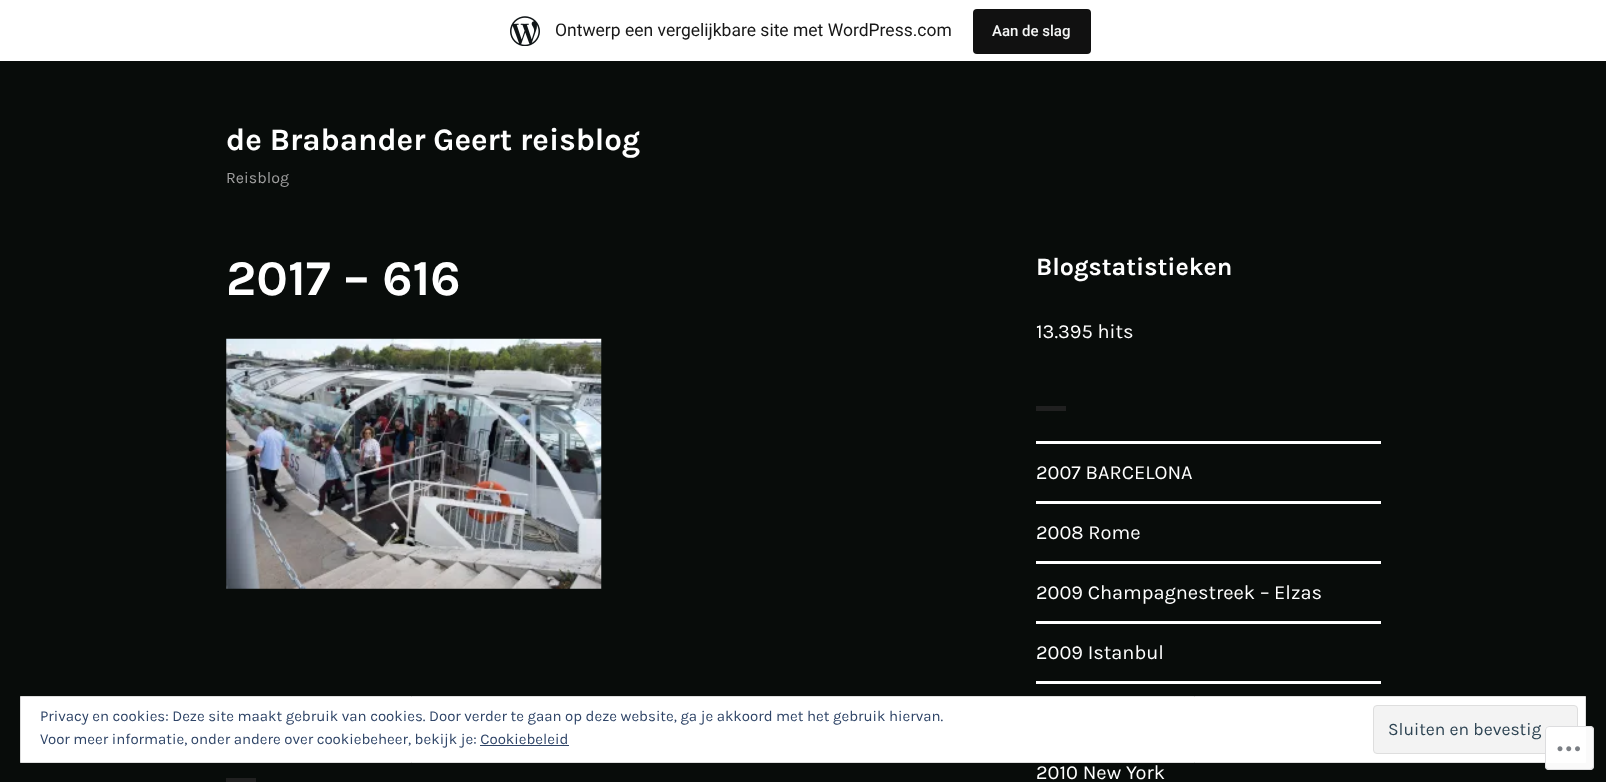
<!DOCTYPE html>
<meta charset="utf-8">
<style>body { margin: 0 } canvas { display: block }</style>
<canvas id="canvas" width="1606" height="782"></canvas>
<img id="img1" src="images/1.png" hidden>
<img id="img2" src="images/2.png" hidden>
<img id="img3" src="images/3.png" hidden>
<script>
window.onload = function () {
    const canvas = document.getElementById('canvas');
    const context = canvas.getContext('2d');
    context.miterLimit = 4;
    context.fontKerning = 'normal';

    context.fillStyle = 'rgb(8, 12, 10)';
    context.fillRect(0, 0, 1606, 782);
    context.fillStyle = 'rgb(255, 255, 255)';
    context.fillRect(0, 0, 1606, 61);
    context.drawImage(document.getElementById('img1'), 510, 16, 30, 30);
    context.fillStyle = 'rgb(17, 17, 17)';
    context.beginPath();
    context.roundRect(973, 9, 118, 45, 4);
    context.fill();
    context.drawImage(document.getElementById('img2'), 226, 338, 376, 251);
    context.fillStyle = 'rgb(32, 32, 32)';
    context.fillRect(226, 778, 30, 4);
    context.fillRect(1036, 406, 30, 5);
    context.fillStyle = 'rgb(255, 255, 255)';
    context.fillRect(1036, 441, 345, 3);
    context.fillRect(1036, 501, 345, 3);
    context.fillRect(1036, 561, 345, 3);
    context.fillRect(1036, 621, 345, 3);
    context.fillRect(1036, 681, 345, 3);
    context.beginPath();
    context.rect(20.5, 696.5, 1565, 66);
    context.fill();
    context.strokeStyle = 'rgb(222, 222, 222)';
    context.stroke();
    context.fillStyle = 'rgb(243, 243, 243)';
    context.beginPath();
    context.roundRect(1373.5, 705.5, 204, 48, 3.5);
    context.fill();
    context.stroke();
    context.fillStyle = 'rgb(46, 68, 103)';
    context.fillRect(480, 745, 89, 1);
    context.fillStyle = 'rgba(255, 255, 255, 0.98)';
    context.beginPath();
    context.roundRect(1545, 726, 49, 44, 4);
    context.fill();
    context.beginPath();
    context.roundRect(1545.5, 726.5, 48, 43, 3.5);
    context.strokeStyle = 'rgba(220, 220, 222, 0.98)';
    context.stroke();
    context.drawImage(document.getElementById('img3'), 1557, 746, 23, 6);
    context.font = '17.5px Roboto';
    context.fillStyle = 'rgb(23, 23, 23)';
    context.fillText('Ontwerp een vergelijkbare site met WordPress.com', 555, 36);
    context.font = '500 15px Roboto';
    context.fillStyle = 'rgb(246, 247, 247)';
    context.fillText('Aan de slag', 992, 36);
    context.font = 'bold 31.25px Karla';
    context.fillStyle = 'rgb(255, 255, 255)';
    context.fillText('de Brabander Geert reisblog', 226, 150);
    context.font = '16px Karla';
    context.fillStyle = 'rgb(160, 160, 160)';
    context.fillText('Reisblog', 226, 183);
    context.font = 'bold 50px Karla';
    context.fillStyle = 'rgb(255, 255, 255)';
    context.fillText('2017 – 616', 226, 295);
    context.font = 'bold 25px Karla';
    context.fillText('Blogstatistieken', 1036, 275);
    context.font = '20px Karla';
    context.fillText('13.395 hits', 1036, 338);
    context.fillText('2007 BARCELONA', 1036, 479);
    context.fillText('2008 Rome', 1036, 539);
    context.fillText('2009 Champagnestreek – Elzas', 1036, 599);
    context.fillText('2009 Istanbul', 1036, 659);
    context.fillText('2010 New York', 1036, 779);
    context.font = '15px Karla';
    context.fillStyle = 'rgb(46, 68, 103)';
    context.fillText('Privacy en cookies: Deze site maakt gebruik van cookies. Door verder te gaan op deze website, ga je akkoord met het gebruik hiervan.', 40, 721);
    context.fillText('Voor meer informatie, onder andere over cookiebeheer, bekijk je: Cookiebeleid', 40, 744);
    context.font = '17.5px Karla';
    context.fillStyle = 'rgb(46, 68, 83)';
    context.fillText('Sluiten en bevestig', 1388, 735);
};
</script>
